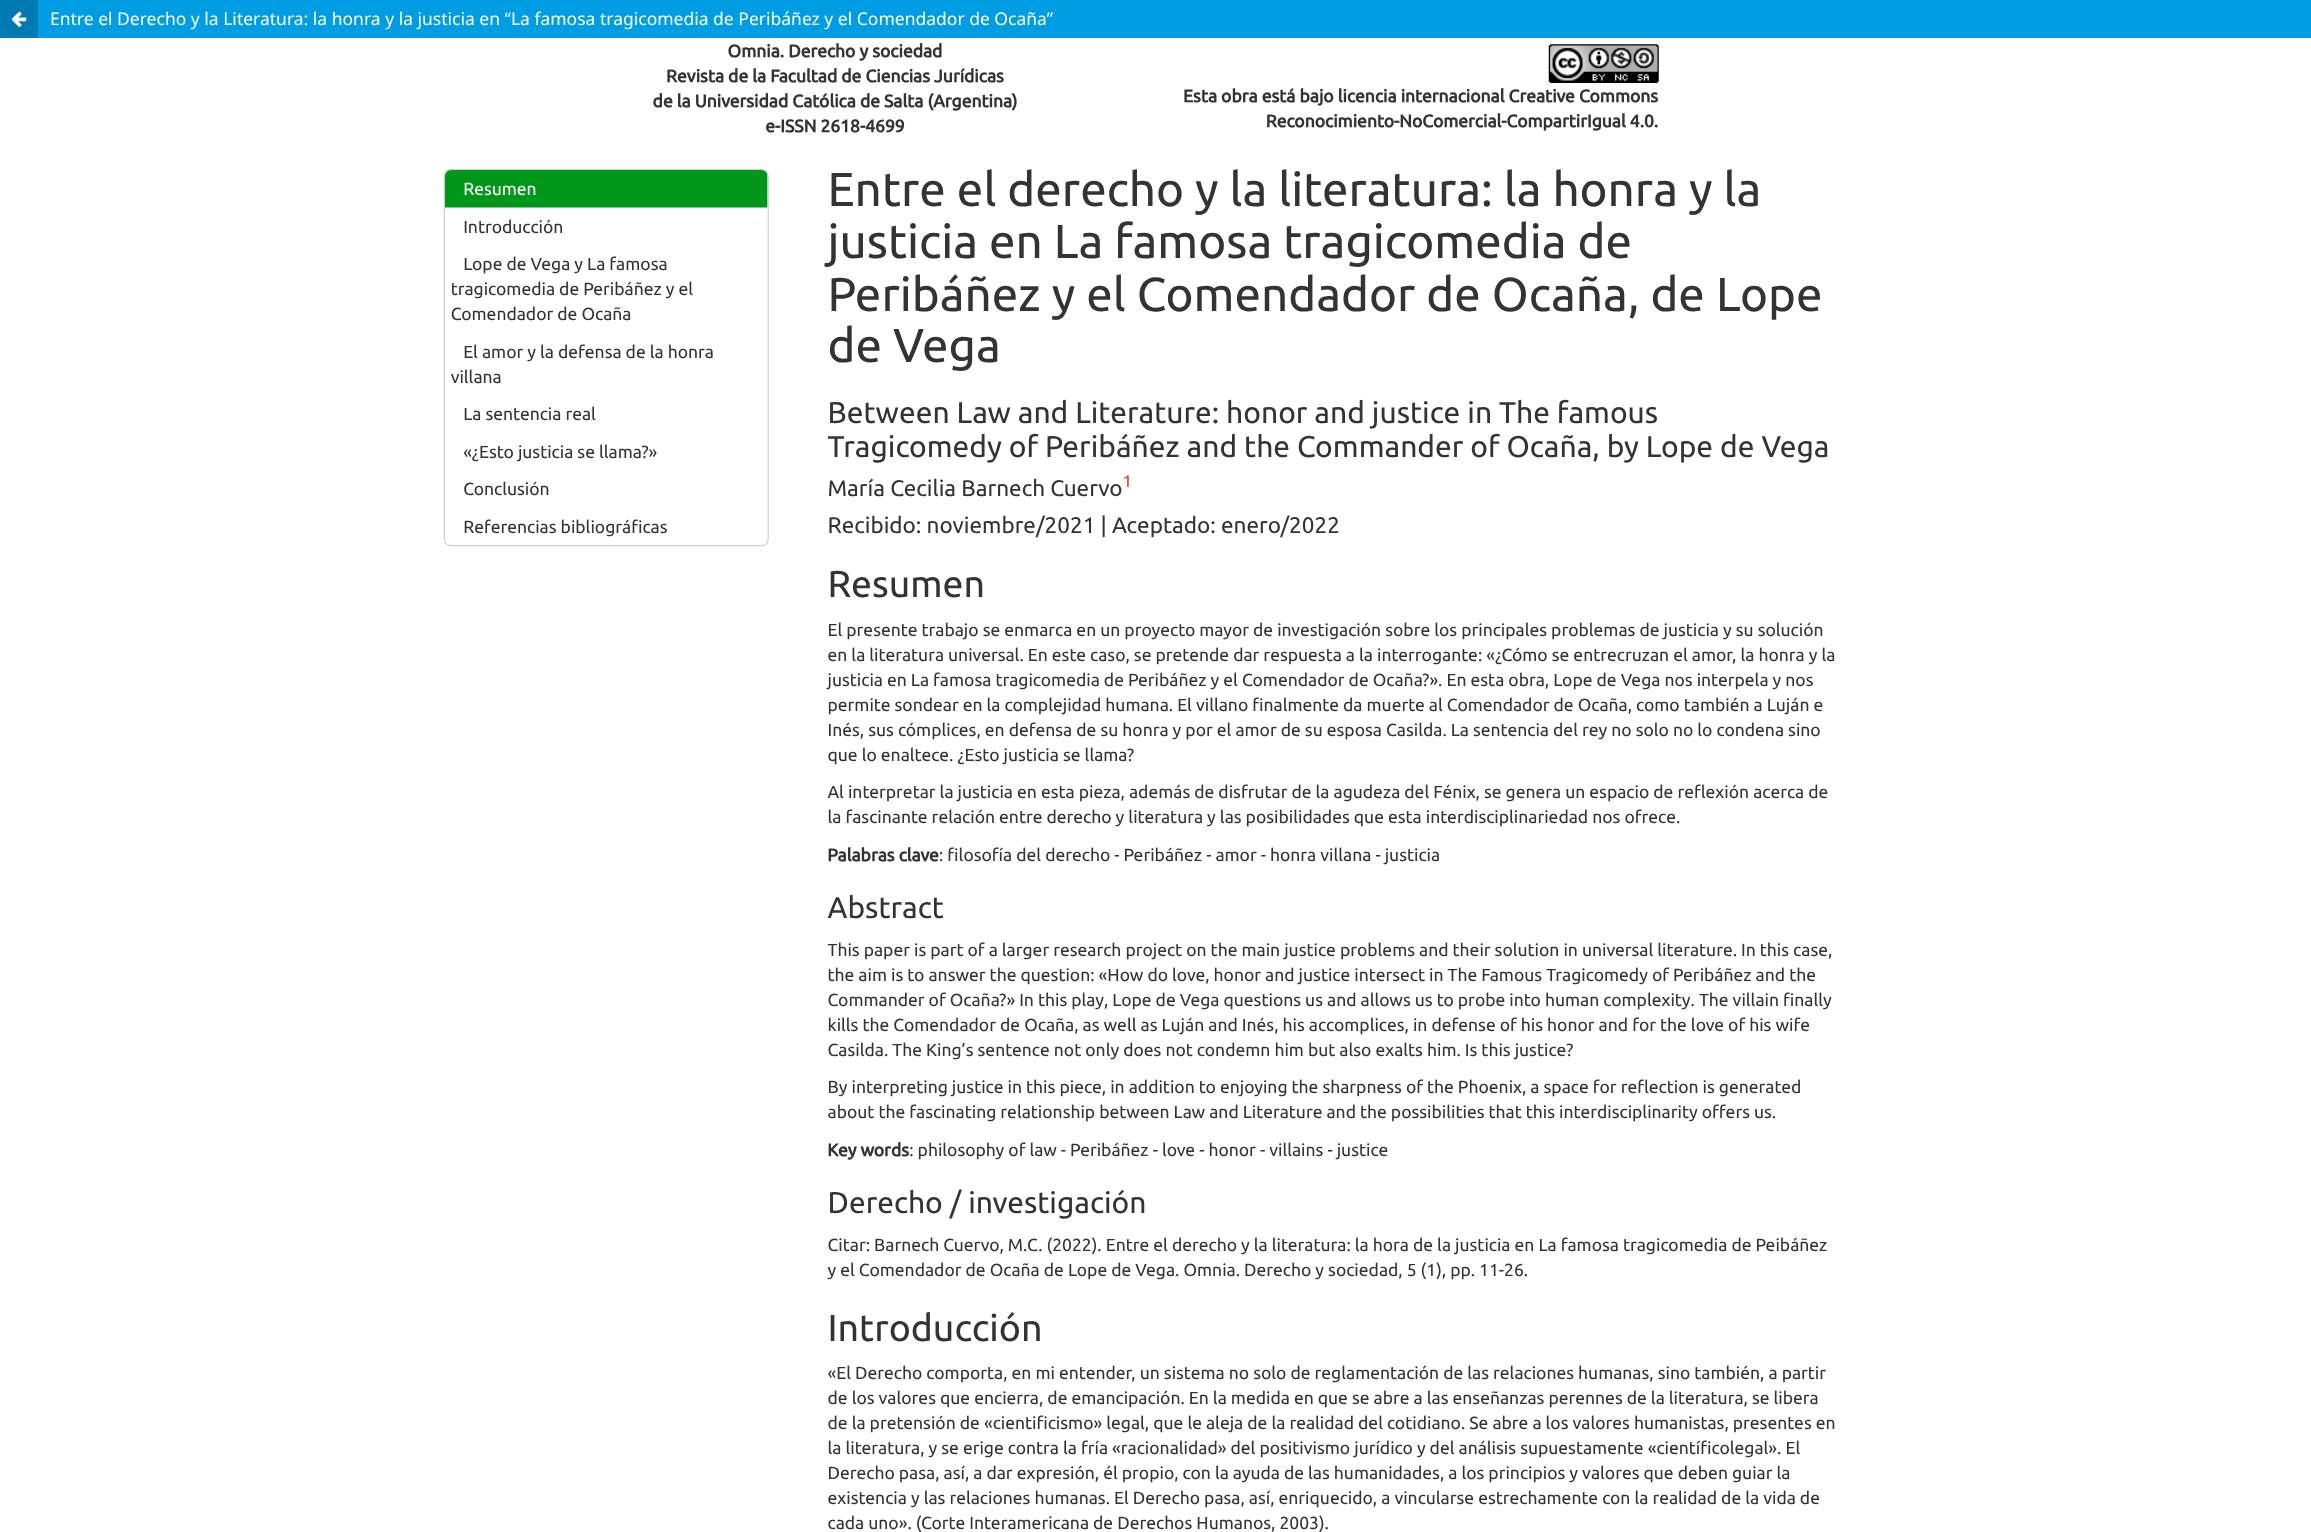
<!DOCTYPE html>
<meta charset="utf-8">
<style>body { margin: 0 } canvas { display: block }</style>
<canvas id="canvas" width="2311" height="1532"></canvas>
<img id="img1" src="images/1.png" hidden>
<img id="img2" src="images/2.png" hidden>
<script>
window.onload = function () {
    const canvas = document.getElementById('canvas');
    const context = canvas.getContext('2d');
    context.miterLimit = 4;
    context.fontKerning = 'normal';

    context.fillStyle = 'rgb(255, 255, 255)';
    context.fillRect(0, 0, 2311, 1532);
    context.fillStyle = 'rgb(0, 157, 229)';
    context.fillRect(38, 0, 2273, 38);
    context.fillStyle = 'rgb(0, 122, 178)';
    context.fillRect(0, 0, 38, 38);
    context.drawImage(document.getElementById('img1'), 11, 11, 16, 16);
    context.drawImage(document.getElementById('img2'), 443, 43, 1392, 1489);
    context.font = '17.5px Noto Sans';
    context.fillStyle = 'rgb(255, 255, 255)';
    context.fillText('Entre el Derecho y la Literatura: la honra y la justicia en “La famosa tragicomedia de Peribáñez y el Comendador de Ocaña”', 50, 25);
};
</script>
